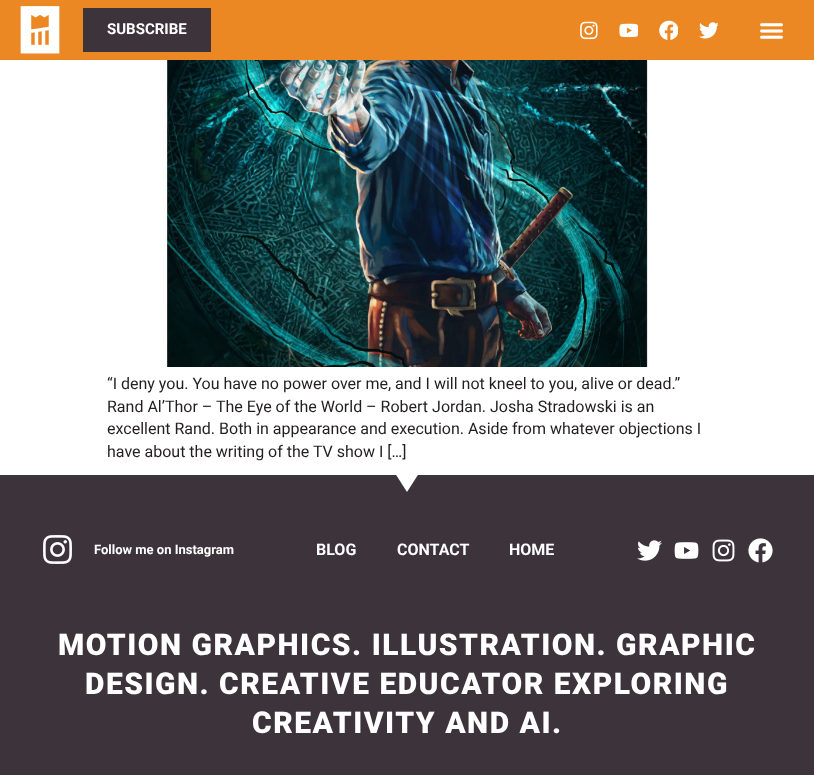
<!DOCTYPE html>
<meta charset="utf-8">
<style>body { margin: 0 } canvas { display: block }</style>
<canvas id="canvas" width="814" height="775"></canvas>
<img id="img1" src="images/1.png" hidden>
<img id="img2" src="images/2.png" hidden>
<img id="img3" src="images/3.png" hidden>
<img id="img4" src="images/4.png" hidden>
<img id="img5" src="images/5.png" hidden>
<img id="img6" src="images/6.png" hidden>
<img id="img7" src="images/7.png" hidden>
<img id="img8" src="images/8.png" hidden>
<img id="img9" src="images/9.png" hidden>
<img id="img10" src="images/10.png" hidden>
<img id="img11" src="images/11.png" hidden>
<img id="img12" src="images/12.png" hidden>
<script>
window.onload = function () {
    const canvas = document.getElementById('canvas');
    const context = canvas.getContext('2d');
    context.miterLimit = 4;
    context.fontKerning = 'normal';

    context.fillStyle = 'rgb(255, 255, 255)';
    context.fillRect(0, 0, 814, 775);
    context.fillStyle = 'rgb(236, 136, 35)';
    context.fillRect(0, 0, 814, 60);
    context.drawImage(document.getElementById('img1'), 20, 6, 40, 48);
    context.fillStyle = 'rgb(61, 51, 59)';
    context.fillRect(83, 8, 128, 44);
    context.drawImage(document.getElementById('img2'), 580, 21, 18, 19);
    context.drawImage(document.getElementById('img3'), 619, 23, 19, 15);
    context.drawImage(document.getElementById('img4'), 659, 20, 19, 20);
    context.drawImage(document.getElementById('img5'), 699, 22, 19, 17);
    context.drawImage(document.getElementById('img6'), 760, 23, 23, 16);
    context.drawImage(document.getElementById('img7'), 163, 60, 486, 307);
    context.fillRect(0, 475, 814, 300);
    context.fillStyle = 'rgb(255, 255, 255)';
    context.beginPath();
    context.moveTo(407, 492);
    context.lineTo(395.5, 474);
    context.lineTo(418.5, 474);
    context.closePath();
    context.fill();
    context.drawImage(document.getElementById('img8'), 43, 535, 29, 29);
    context.drawImage(document.getElementById('img9'), 637, 540, 25, 21);
    context.drawImage(document.getElementById('img10'), 674, 542, 25, 17);
    context.drawImage(document.getElementById('img11'), 712, 539, 23, 23);
    context.drawImage(document.getElementById('img12'), 748, 538, 25, 25);
    context.font = 'bold 15px Roboto';
    context.fillText('SUBSCRIBE', 107, 34);
    context.font = '16px Roboto';
    context.fillStyle = 'rgb(35, 31, 32)';
    context.fillText('“I deny you. You have no power over me, and I will not kneel to you, alive or dead.”', 107, 389);
    context.fillText('Rand Al’Thor – The Eye of the World – Robert Jordan. Josha Stradowski is an', 107, 412);
    context.fillText('excellent Rand. Both in appearance and execution. Aside from whatever objections I', 107, 434);
    context.fillText('have about the writing of the TV show I […]', 107, 457);
    context.font = 'bold 13px Roboto';
    context.fillStyle = 'rgb(255, 255, 255)';
    context.fillText('Follow me on Instagram', 94, 554);
    context.font = 'bold 16px Roboto';
    context.fillText('BLOG', 316, 555);
    context.fillText('CONTACT', 397, 555);
    context.fillText('HOME', 509, 555);
    context.letterSpacing = '1.5px';
    context.font = '900 30px Roboto';
    context.fillText('MOTION GRAPHICS. ILLUSTRATION. GRAPHIC', 58, 655);
    context.fillText('DESIGN. CREATIVE EDUCATOR EXPLORING', 85, 694);
    context.fillText('CREATIVITY AND AI.', 252, 733);
};
</script>
